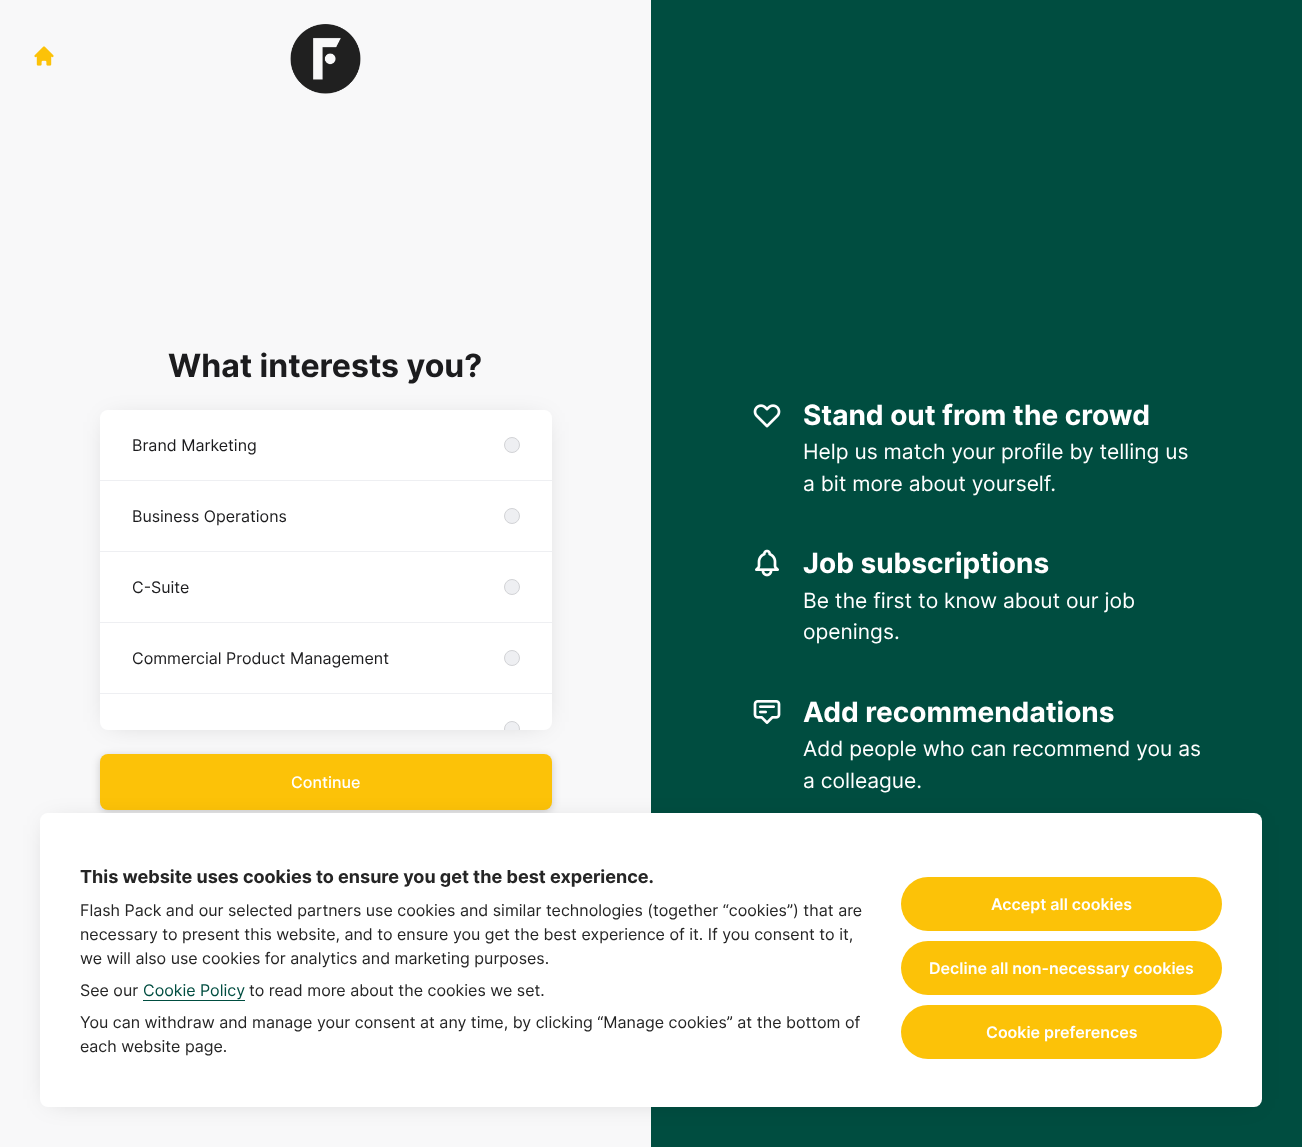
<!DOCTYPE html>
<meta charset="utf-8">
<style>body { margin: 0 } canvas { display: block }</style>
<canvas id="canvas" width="1302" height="1147"></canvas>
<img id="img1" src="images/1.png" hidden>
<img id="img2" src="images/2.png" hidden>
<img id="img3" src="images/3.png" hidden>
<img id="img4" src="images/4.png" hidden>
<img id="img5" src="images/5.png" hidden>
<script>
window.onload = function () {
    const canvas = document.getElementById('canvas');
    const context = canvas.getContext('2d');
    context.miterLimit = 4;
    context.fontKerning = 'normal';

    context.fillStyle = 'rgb(248, 248, 249)';
    context.fillRect(0, 0, 1302, 1147);
    context.drawImage(document.getElementById('img1'), 34, 46, 20, 20);
    context.drawImage(document.getElementById('img2'), 290, 24, 71, 70);
    context.fillStyle = 'rgba(0, 0, 0, 0.18)';
    context.filter = 'blur(13.5px)';
    context.beginPath();
    context.rect(110, 422, 432, 300);
    context.fill();
    context.filter = 'none';
    context.fillStyle = 'rgb(255, 255, 255)';
    context.beginPath();
    context.roundRect(100, 410, 452, 320, 8);
    context.fill();
    context.fillStyle = 'rgb(238, 239, 242)';
    context.fillRect(100, 480, 452, 1);
    context.beginPath();
    context.arc(512, 445, 7.5, 0, 2 * Math.PI);
    context.fill();
    context.strokeStyle = 'rgb(210, 211, 214)';
    context.stroke();
    context.fillRect(100, 551, 452, 1);
    context.beginPath();
    context.arc(512, 516, 7.5, 0, 2 * Math.PI);
    context.fill();
    context.stroke();
    context.fillRect(100, 622, 452, 1);
    context.beginPath();
    context.arc(512, 587, 7.5, 0, 2 * Math.PI);
    context.fill();
    context.stroke();
    context.fillRect(100, 693, 452, 1);
    context.beginPath();
    context.arc(512, 658, 7.5, 0, 2 * Math.PI);
    context.fill();
    context.stroke();
    context.save();
    context.beginPath();
    context.rect(100, 410, 452, 320);
    context.clip();
    context.beginPath();
    context.arc(512, 729, 7.5, 0, 2 * Math.PI);
    context.fill();
    context.stroke();
    context.restore();
    context.fillStyle = 'rgba(0, 0, 0, 0.18)';
    context.filter = 'blur(4.5px)';
    context.beginPath();
    context.roundRect(100, 756, 452, 56, 8);
    context.fill();
    context.filter = 'none';
    context.fillStyle = 'rgb(252, 194, 8)';
    context.beginPath();
    context.roundRect(100, 754, 452, 56, 8);
    context.fill();
    context.fillStyle = 'rgb(0, 77, 64)';
    context.fillRect(651, 0, 651, 1147);
    context.drawImage(document.getElementById('img3'), 753, 404, 28, 24);
    context.drawImage(document.getElementById('img4'), 755, 549, 24, 28);
    context.drawImage(document.getElementById('img5'), 753, 700, 28, 24);
    context.fillStyle = 'rgba(0, 0, 0, 0.18)';
    context.filter = 'blur(13.5px)';
    context.beginPath();
    context.rect(50, 825, 1202, 274);
    context.fill();
    context.filter = 'none';
    context.fillStyle = 'rgb(255, 255, 255)';
    context.beginPath();
    context.roundRect(40, 813, 1222, 294, 8);
    context.fill();
    context.fillStyle = 'rgb(0, 77, 64)';
    context.fillRect(143, 1000, 102, 1);
    context.fillStyle = 'rgb(252, 194, 8)';
    context.beginPath();
    context.roundRect(901, 877, 321, 54, 27);
    context.fill();
    context.beginPath();
    context.roundRect(901, 941, 321, 54, 27);
    context.fill();
    context.beginPath();
    context.roundRect(901, 1005, 321, 54, 27);
    context.fill();
    context.font = 'bold 32px Inter';
    context.fillStyle = 'rgb(28, 28, 30)';
    context.fillText('What interests you?', 168, 377);
    context.font = '16px Inter';
    context.fillText('Brand Marketing', 132, 451);
    context.fillText('Business Operations', 132, 522);
    context.fillText('C-Suite', 132, 593);
    context.fillText('Commercial Product Management', 132, 664);
    context.font = '500 16px Inter';
    context.fillStyle = 'rgb(255, 255, 255)';
    context.fillText('Continue', 291, 788);
    context.font = 'bold 28px Inter';
    context.fillText('Stand out from the crowd', 803, 425);
    context.font = '21px Inter';
    context.fillText('Help us match your profile by telling us', 803, 459);
    context.fillText('a bit more about yourself.', 803, 491);
    context.font = 'bold 28px Inter';
    context.fillText('Job subscriptions', 803, 573);
    context.font = '21px Inter';
    context.fillText('Be the first to know about our job', 803, 608);
    context.fillText('openings.', 803, 639);
    context.font = 'bold 28px Inter';
    context.fillText('Add recommendations', 803, 722);
    context.font = '21px Inter';
    context.fillText('Add people who can recommend you as', 803, 756);
    context.fillText('a colleague.', 803, 788);
    context.font = 'bold 18px Inter';
    context.fillStyle = 'rgb(37, 37, 37)';
    context.fillText('This website uses cookies to ensure you get the best experience.', 80, 883);
    context.font = '16px Inter';
    context.fillText('Flash Pack and our selected partners use cookies and similar technologies (together “cookies”) that are', 80, 916);
    context.fillText('necessary to present this website, and to ensure you get the best experience of it. If you consent to it,', 80, 940);
    context.fillText('we will also use cookies for analytics and marketing purposes.', 80, 964);
    context.fillText('See our', 80, 996);
    context.fillStyle = 'rgb(0, 77, 64)';
    context.fillText('Cookie Policy', 143, 996);
    context.fillStyle = 'rgb(37, 37, 37)';
    context.fillText('to read more about the cookies we set.', 249, 996);
    context.fillText('You can withdraw and manage your consent at any time, by clicking “Manage cookies” at the bottom of', 80, 1028);
    context.fillText('each website page.', 80, 1052);
    context.font = '600 16px Inter';
    context.fillStyle = 'rgb(255, 255, 255)';
    context.fillText('Accept all cookies', 991, 910);
    context.fillText('Decline all non-necessary cookies', 929, 974);
    context.fillText('Cookie preferences', 986, 1038);
};
</script>
